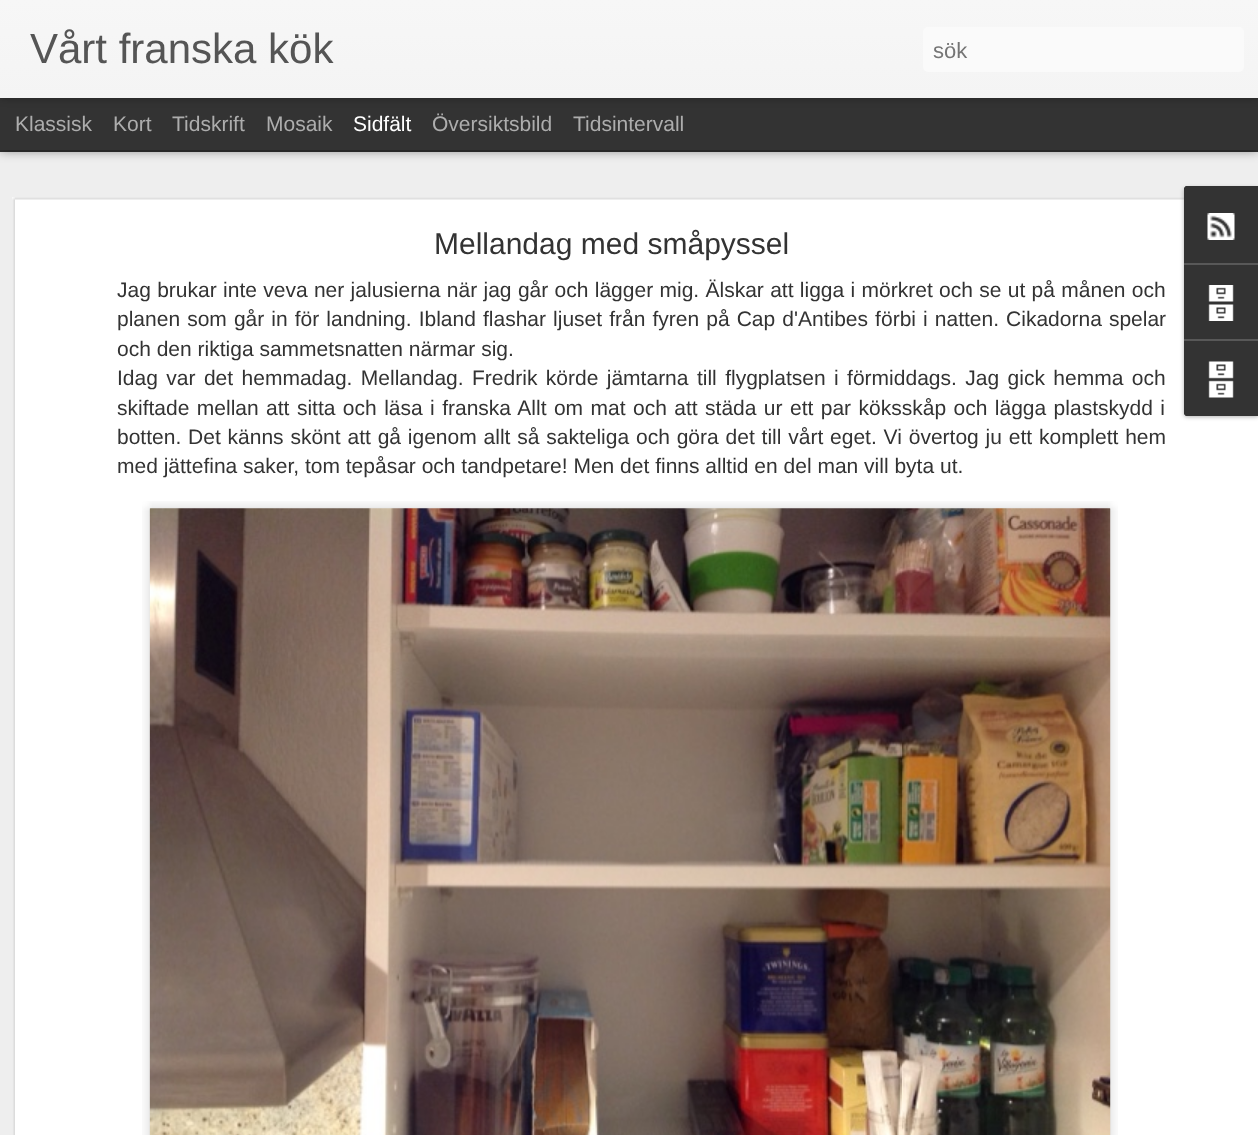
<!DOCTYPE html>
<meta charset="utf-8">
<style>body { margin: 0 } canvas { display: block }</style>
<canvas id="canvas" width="1258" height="1135"></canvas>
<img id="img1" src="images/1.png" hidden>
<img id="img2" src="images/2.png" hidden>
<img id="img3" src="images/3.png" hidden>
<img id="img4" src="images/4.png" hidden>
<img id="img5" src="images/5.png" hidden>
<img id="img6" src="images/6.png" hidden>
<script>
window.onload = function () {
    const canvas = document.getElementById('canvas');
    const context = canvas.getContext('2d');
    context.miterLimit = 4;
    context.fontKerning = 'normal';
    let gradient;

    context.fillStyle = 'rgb(51, 51, 51)';
    context.fillRect(0, 0, 1258, 1135);
    context.fillStyle = 'rgb(238, 238, 238)';
    context.fillRect(0, 152, 1258, 983);
    context.fillStyle = 'rgba(0, 0, 0, 0.5)';
    context.filter = 'blur(6px)';
    context.beginPath();
    context.rect(0, 98, 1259, 52);
    context.fill();
    context.filter = 'none';
    context.fillStyle = 'rgb(51, 51, 51)';
    context.fillRect(0, 98, 1258, 52);
    context.fillStyle = 'rgba(0, 0, 0, 0.3)';
    context.filter = 'blur(4px)';
    context.beginPath();
    context.rect(0, 0, 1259, 98);
    context.fill();
    context.filter = 'none';
    gradient = context.createLinearGradient(0, 0, 0, 98);
    gradient.addColorStop(0, 'rgb(247, 247, 247)');
    gradient.addColorStop(1, 'rgb(244, 244, 244)');
    context.fillStyle = gradient;
    context.fillRect(0, 0, 1258, 98);
    context.fillStyle = 'rgb(250, 250, 250)';
    context.beginPath();
    context.roundRect(923, 27, 321, 45, 5);
    context.fill();
    context.fillStyle = 'rgb(255, 255, 255)';
    context.fillRect(12, 197, 1246, 938);
    context.drawImage(document.getElementById('img1'), 12, 197, 1172, 938);
    context.drawImage(document.getElementById('img2'), 142, 501, 976, 634);
    context.drawImage(document.getElementById('img3'), 149, 508, 962, 627);
    context.fillStyle = 'rgba(0, 0, 0, 0.3)';
    context.filter = 'blur(2px)';
    context.beginPath();
    context.roundRect(1184, 188, 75, 229, 3);
    context.fill();
    context.filter = 'none';
    context.fillStyle = 'rgb(51, 51, 51)';
    context.beginPath();
    context.moveTo(1187, 186);
    context.lineTo(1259, 186);
    context.lineTo(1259, 416);
    context.lineTo(1187, 416);
    context.bezierCurveTo(1185.5, 416, 1184, 414.5, 1184, 413);
    context.lineTo(1184, 189);
    context.bezierCurveTo(1184, 187.5, 1185.5, 186, 1187, 186);
    context.closePath();
    context.fill();
    context.beginPath();
    context.moveTo(1187, 186);
    context.lineTo(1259, 186);
    context.lineTo(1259, 263);
    context.lineTo(1184, 263);
    context.lineTo(1184, 189);
    context.bezierCurveTo(1184, 187.5, 1185.5, 186, 1187, 186);
    context.closePath();
    context.fill();
    context.drawImage(document.getElementById('img4'), 1207, 213, 28, 27);
    context.fillStyle = 'rgb(88, 88, 88)';
    context.fillRect(1184, 263, 74, 2);
    context.drawImage(document.getElementById('img5'), 1208, 285, 26, 36);
    context.fillStyle = 'rgb(51, 51, 51)';
    context.beginPath();
    context.moveTo(1184, 339);
    context.lineTo(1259, 339);
    context.lineTo(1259, 416);
    context.lineTo(1187, 416);
    context.bezierCurveTo(1185.5, 416, 1184, 414.5, 1184, 413);
    context.closePath();
    context.fill();
    context.fillStyle = 'rgb(88, 88, 88)';
    context.fillRect(1184, 339, 74, 2);
    context.drawImage(document.getElementById('img6'), 1208, 361, 26, 37);
    context.font = '42px Liberation Sans';
    context.fillStyle = 'rgb(85, 85, 85)';
    context.fillText('Vårt franska kök', 30, 63);
    context.font = '22px Liberation Sans';
    context.fillStyle = 'rgb(117, 117, 117)';
    context.fillText('sök', 933, 58);
    context.font = '21px Liberation Sans';
    context.fillStyle = 'rgb(173, 173, 173)';
    context.fillText('Klassisk', 15, 131);
    context.fillText('Kort', 113, 131);
    context.fillText('Tidskrift', 172, 131);
    context.fillText('Mosaik', 266, 131);
    context.fillStyle = 'rgb(255, 255, 255)';
    context.fillText('Sidfält', 353, 131);
    context.fillStyle = 'rgb(173, 173, 173)';
    context.fillText('Översiktsbild', 432, 131);
    context.fillText('Tidsintervall', 573, 131);
    context.font = '30px Liberation Sans';
    context.fillStyle = 'rgb(51, 51, 51)';
    context.fillText('Mellandag med småpyssel', 434, 254);
    context.wordSpacing = '0.5px';
    context.font = '21px Liberation Sans';
    context.fillText('Jag brukar inte veva ner jalusierna när jag går och lägger mig. Älskar att ligga i mörkret och se ut på månen och', 117, 297);
    context.wordSpacing = '1.25px';
    context.fillText('planen som går in för landning. Ibland flashar ljuset från fyren på Cap d\'Antibes förbi i natten. Cikadorna spelar', 117, 326);
    context.wordSpacing = '0px';
    context.fillText('och den riktiga sammetsnatten närmar sig.', 117, 356);
    context.wordSpacing = '2.6px';
    context.fillText('Idag var det hemmadag. Mellandag. Fredrik körde jämtarna till flygplatsen i förmiddags. Jag gick hemma och', 117, 385);
    context.wordSpacing = '1.6px';
    context.fillText('skiftade mellan att sitta och läsa i franska Allt om mat och att städa ur ett par köksskåp och lägga plastskydd i', 117, 415);
    context.wordSpacing = '1px';
    context.fillText('botten. Det känns skönt att gå igenom allt så sakteliga och göra det till vårt eget. Vi övertog ju ett komplett hem', 117, 444);
    context.wordSpacing = '0px';
    context.fillText('med jättefina saker, tom tepåsar och tandpetare! Men det finns alltid en del man vill byta ut.', 117, 473);
};
</script>
